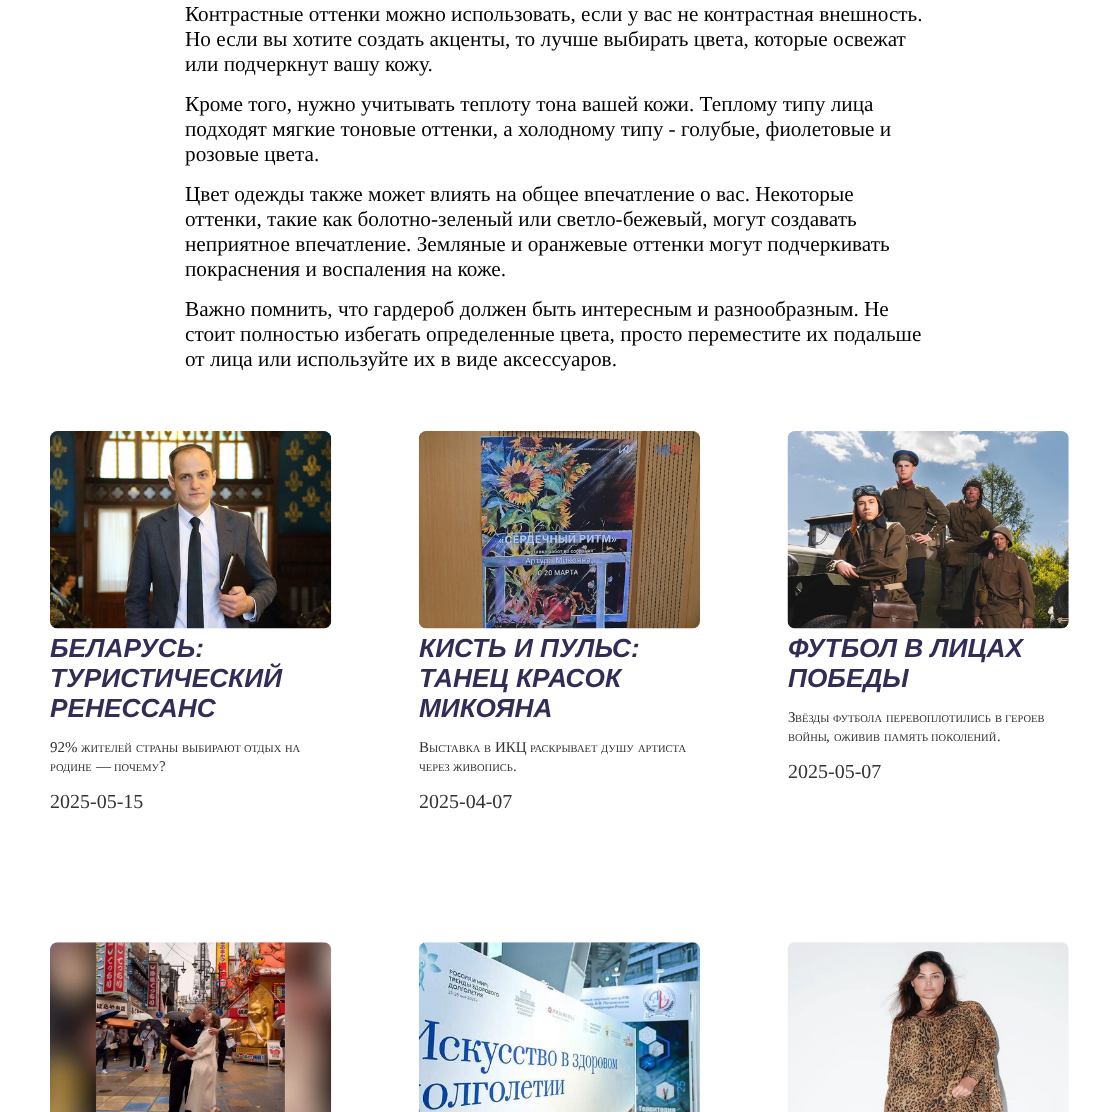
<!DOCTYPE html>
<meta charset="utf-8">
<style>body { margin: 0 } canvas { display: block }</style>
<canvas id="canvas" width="1119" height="1112"></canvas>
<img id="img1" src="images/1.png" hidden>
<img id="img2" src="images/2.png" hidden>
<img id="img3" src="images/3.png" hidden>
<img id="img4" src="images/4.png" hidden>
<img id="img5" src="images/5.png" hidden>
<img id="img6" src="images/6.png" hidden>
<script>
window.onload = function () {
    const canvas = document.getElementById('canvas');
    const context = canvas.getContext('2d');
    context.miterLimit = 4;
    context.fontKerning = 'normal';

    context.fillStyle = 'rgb(255, 255, 255)';
    context.fillRect(0, 0, 1119, 1112);
    context.drawImage(document.getElementById('img1'), 50, 431, 282, 198);
    context.drawImage(document.getElementById('img2'), 418, 431, 282, 198);
    context.drawImage(document.getElementById('img3'), 787, 431, 282, 198);
    context.drawImage(document.getElementById('img4'), 50, 942, 282, 170);
    context.drawImage(document.getElementById('img5'), 418, 942, 282, 170);
    context.drawImage(document.getElementById('img6'), 787, 942, 282, 170);
    context.font = '21.25px Liberation Serif';
    context.fillStyle = 'rgb(0, 0, 0)';
    context.fillText('Контрастные оттенки можно использовать, если у вас не контрастная внешность.', 185, 21);
    context.fillText('Но если вы хотите создать акценты, то лучше выбирать цвета, которые освежат', 185, 46);
    context.fillText('или подчеркнут вашу кожу.', 185, 71);
    context.fillText('Кроме того, нужно учитывать теплоту тона вашей кожи. Теплому типу лица', 185, 111);
    context.fillText('подходят мягкие тоновые оттенки, а холодному типу - голубые, фиолетовые и', 185, 136);
    context.fillText('розовые цвета.', 185, 161);
    context.fillText('Цвет одежды также может влиять на общее впечатление о вас. Некоторые', 185, 201);
    context.fillText('оттенки, такие как болотно-зеленый или светло-бежевый, могут создавать', 185, 226);
    context.fillText('неприятное впечатление. Земляные и оранжевые оттенки могут подчеркивать', 185, 251);
    context.fillText('покраснения и воспаления на коже.', 185, 276);
    context.fillText('Важно помнить, что гардероб должен быть интересным и разнообразным. Не', 185, 316);
    context.fillText('стоит полностью избегать определенные цвета, просто переместите их подальше', 185, 341);
    context.fillText('от лица или используйте их в виде аксессуаров.', 185, 366);
    context.font = 'italic bold 26.25px Liberation Sans';
    context.fillStyle = 'rgb(51, 44, 86)';
    context.fillText('БЕЛАРУСЬ:', 50, 657);
    context.fillText('ТУРИСТИЧЕСКИЙ', 50, 687);
    context.fillText('РЕНЕССАНС', 50, 717);
    context.font = '15px Liberation Serif';
    context.fillStyle = 'rgb(51, 51, 51)';
    context.fillText('92%', 50, 752);
    context.font = '10.5px Liberation Serif';
    context.fillText('ЖИТЕЛЕЙ', 81, 752);
    context.fillText('СТРАНЫ', 136, 752);
    context.fillText('ВЫБИРАЮТ', 182, 752);
    context.fillText('ОТДЫХ', 244, 752);
    context.fillText('НА', 285, 752);
    context.fillText('РОДИНЕ', 50, 771);
    context.font = '15px Liberation Serif';
    context.fillText('—', 96, 771);
    context.font = '10.5px Liberation Serif';
    context.fillText('ПОЧЕМУ', 114, 771);
    context.font = '15px Liberation Serif';
    context.fillText('?', 159, 771);
    context.font = '20px Liberation Serif';
    context.fillText('2025-05-15', 50, 808);
    context.font = 'italic bold 26.25px Liberation Sans';
    context.fillStyle = 'rgb(51, 44, 86)';
    context.fillText('КИСТЬ И ПУЛЬС:', 419, 657);
    context.fillText('ТАНЕЦ КРАСОК', 419, 687);
    context.fillText('МИКОЯНА', 419, 717);
    context.font = '15px Liberation Serif';
    context.fillStyle = 'rgb(51, 51, 51)';
    context.fillText('В', 419, 752);
    context.font = '10.5px Liberation Serif';
    context.fillText('ЫСТАВКА', 429, 752);
    context.fillText('В', 484, 752);
    context.font = '15px Liberation Serif';
    context.fillText('ИКЦ', 495, 752);
    context.font = '10.5px Liberation Serif';
    context.fillText('РАСКРЫВАЕТ', 530, 752);
    context.fillText('ДУШУ', 601, 752);
    context.fillText('АРТИСТА', 638, 752);
    context.fillText('ЧЕРЕЗ', 419, 771);
    context.fillText('ЖИВОПИСЬ', 453, 771);
    context.font = '15px Liberation Serif';
    context.fillText('.', 513, 771);
    context.font = '20px Liberation Serif';
    context.fillText('2025-04-07', 419, 808);
    context.font = 'italic bold 26.25px Liberation Sans';
    context.fillStyle = 'rgb(51, 44, 86)';
    context.fillText('ФУТБОЛ В ЛИЦАХ', 788, 657);
    context.fillText('ПОБЕДЫ', 788, 687);
    context.font = '15px Liberation Serif';
    context.fillStyle = 'rgb(51, 51, 51)';
    context.fillText('З', 788, 722);
    context.font = '10.5px Liberation Serif';
    context.fillText('ВЁЗДЫ', 795, 722);
    context.fillText('ФУТБОЛА', 833, 722);
    context.fillText('ПЕРЕВОПЛОТИЛИСЬ', 886, 722);
    context.fillText('В', 995, 722);
    context.fillText('ГЕРОЕВ', 1005, 722);
    context.fillText('ВОЙНЫ', 788, 741);
    context.fillText('ОЖИВИВ', 834, 741);
    context.fillText('ПАМЯТЬ', 884, 741);
    context.fillText('ПОКОЛЕНИЙ', 931, 741);
    context.font = '15px Liberation Serif';
    context.fillText(',', 826, 741);
    context.fillText('.', 997, 741);
    context.font = '20px Liberation Serif';
    context.fillText('2025-05-07', 788, 778);
};
</script>
